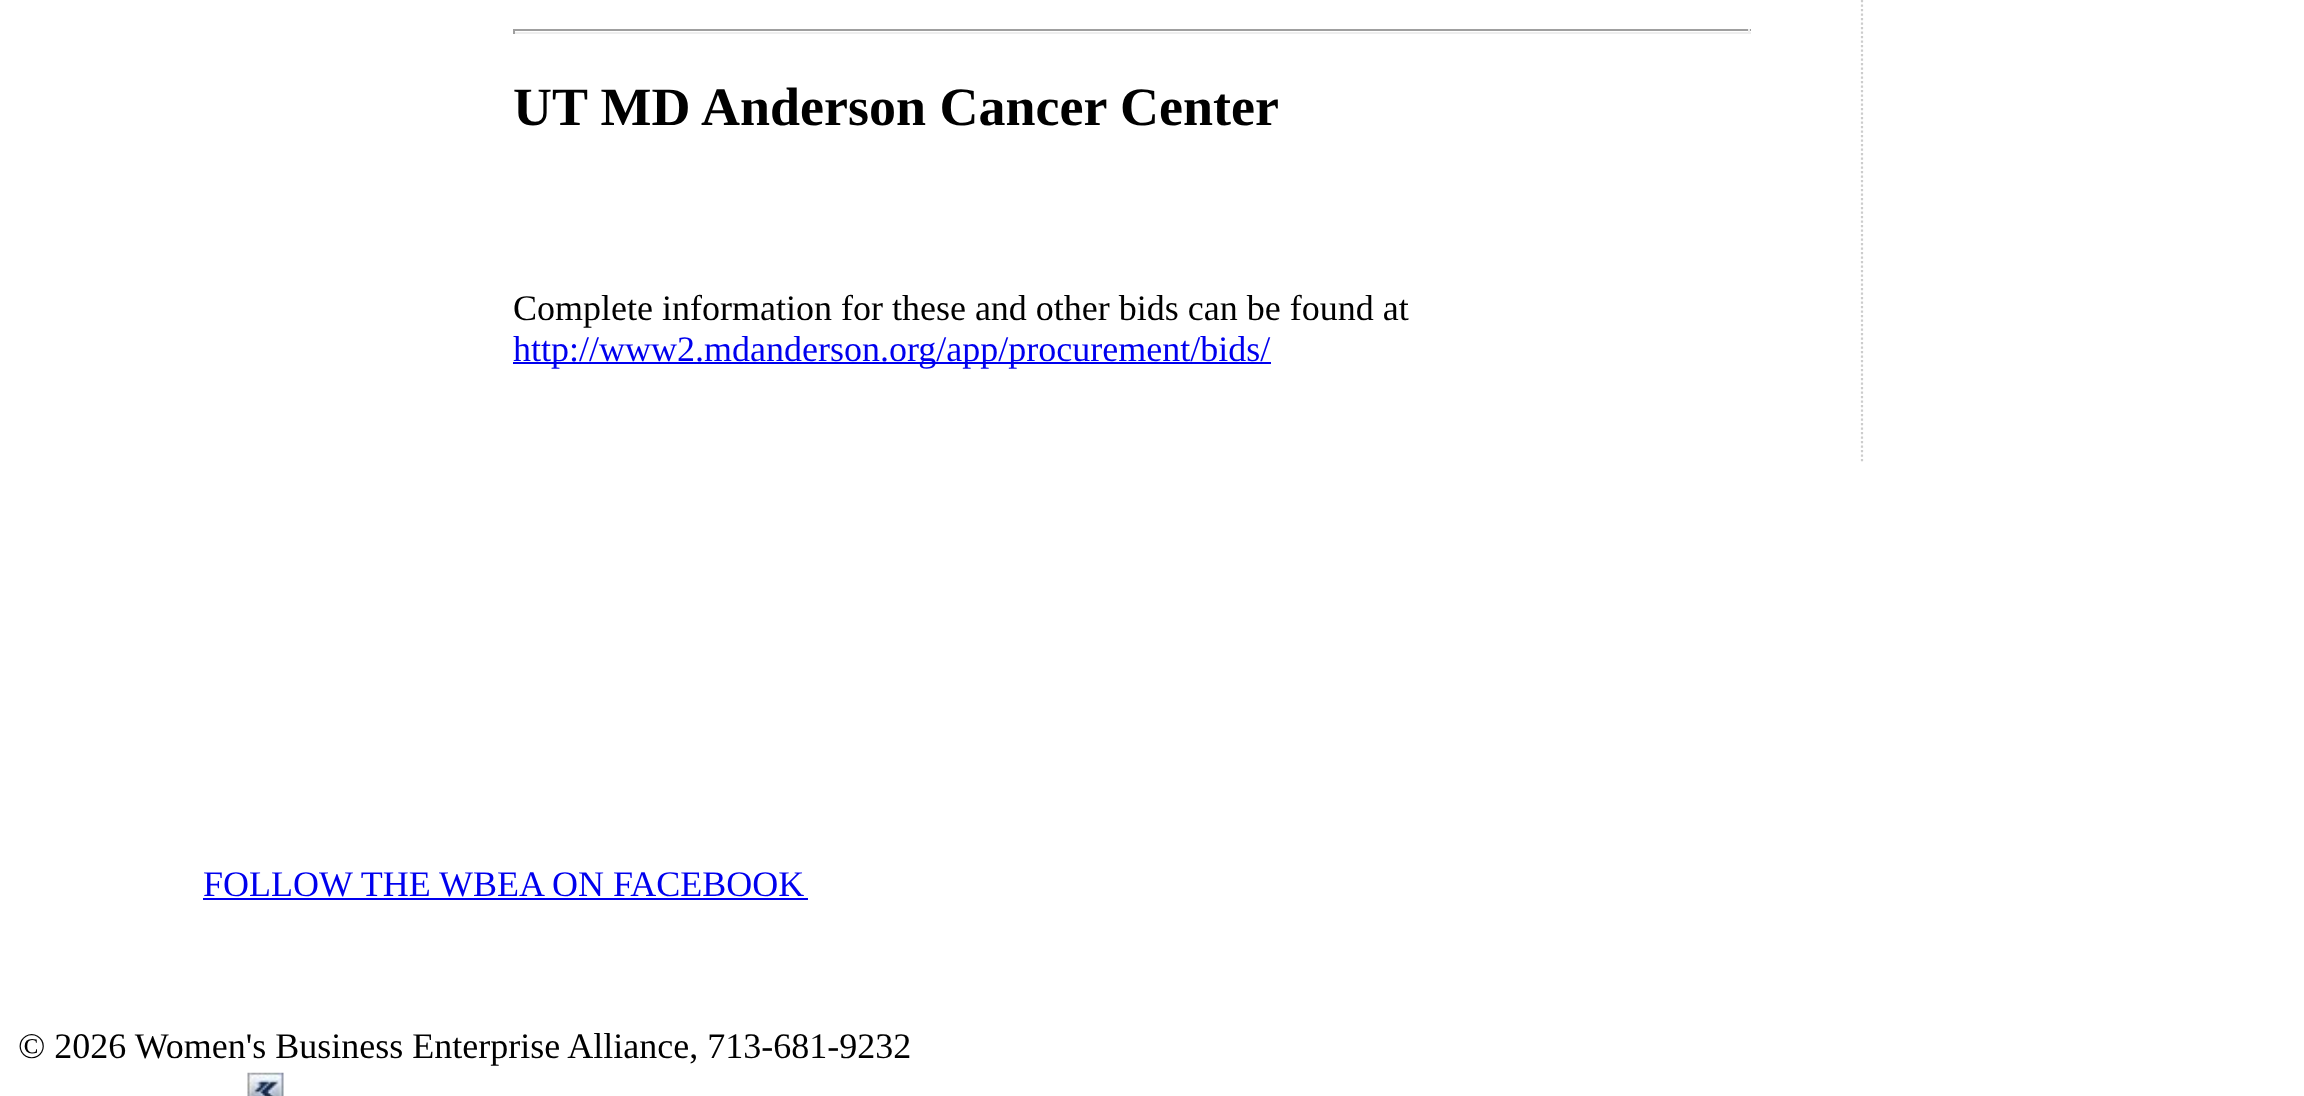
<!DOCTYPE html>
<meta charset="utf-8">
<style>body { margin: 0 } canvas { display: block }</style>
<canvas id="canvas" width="2304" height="1096"></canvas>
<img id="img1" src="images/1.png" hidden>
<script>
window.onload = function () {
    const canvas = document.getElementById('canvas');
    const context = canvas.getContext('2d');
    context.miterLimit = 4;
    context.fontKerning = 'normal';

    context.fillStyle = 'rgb(255, 255, 255)';
    context.fillRect(0, 0, 2304, 1096);
    context.beginPath();
    context.moveTo(1862, -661.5);
    context.lineTo(1862, 463.5);
    context.strokeStyle = 'rgb(204, 204, 204)';
    context.lineWidth = 2.2;
    context.setLineDash([2.25, 2.25]);
    context.stroke();
    context.fillStyle = 'rgb(159, 159, 159)';
    context.fillRect(513, 29, 1238, 2);
    context.fillStyle = 'rgb(238, 238, 238)';
    context.fillRect(1748, 29, 2, 5);
    context.fillRect(513, 32, 1238, 2);
    context.fillStyle = 'rgb(159, 159, 159)';
    context.fillRect(513, 29, 2, 5);
    context.fillStyle = 'rgb(0, 0, 238)';
    context.fillRect(513, 362, 758, 2);
    context.fillRect(203, 898, 605, 2);
    context.drawImage(document.getElementById('img1'), 247, 1072, 37, 24);
    context.font = 'bold 54px Liberation Serif';
    context.fillStyle = 'rgb(0, 0, 0)';
    context.fillText('UT MD Anderson Cancer Center', 513, 125);
    context.font = '36px Liberation Serif';
    context.fillText('Complete information for these and other bids can be found at', 513, 320);
    context.fillStyle = 'rgb(0, 0, 238)';
    context.fillText('http://www2.mdanderson.org/app/procurement/bids/', 513, 361);
    context.fillText('FOLLOW THE WBEA ON FACEBOOK', 203, 896);
    context.fillStyle = 'rgb(0, 0, 0)';
    context.fillText('© 2026 Women\'s Business Enterprise Alliance, 713-681-9232', 18, 1058);
};
</script>
